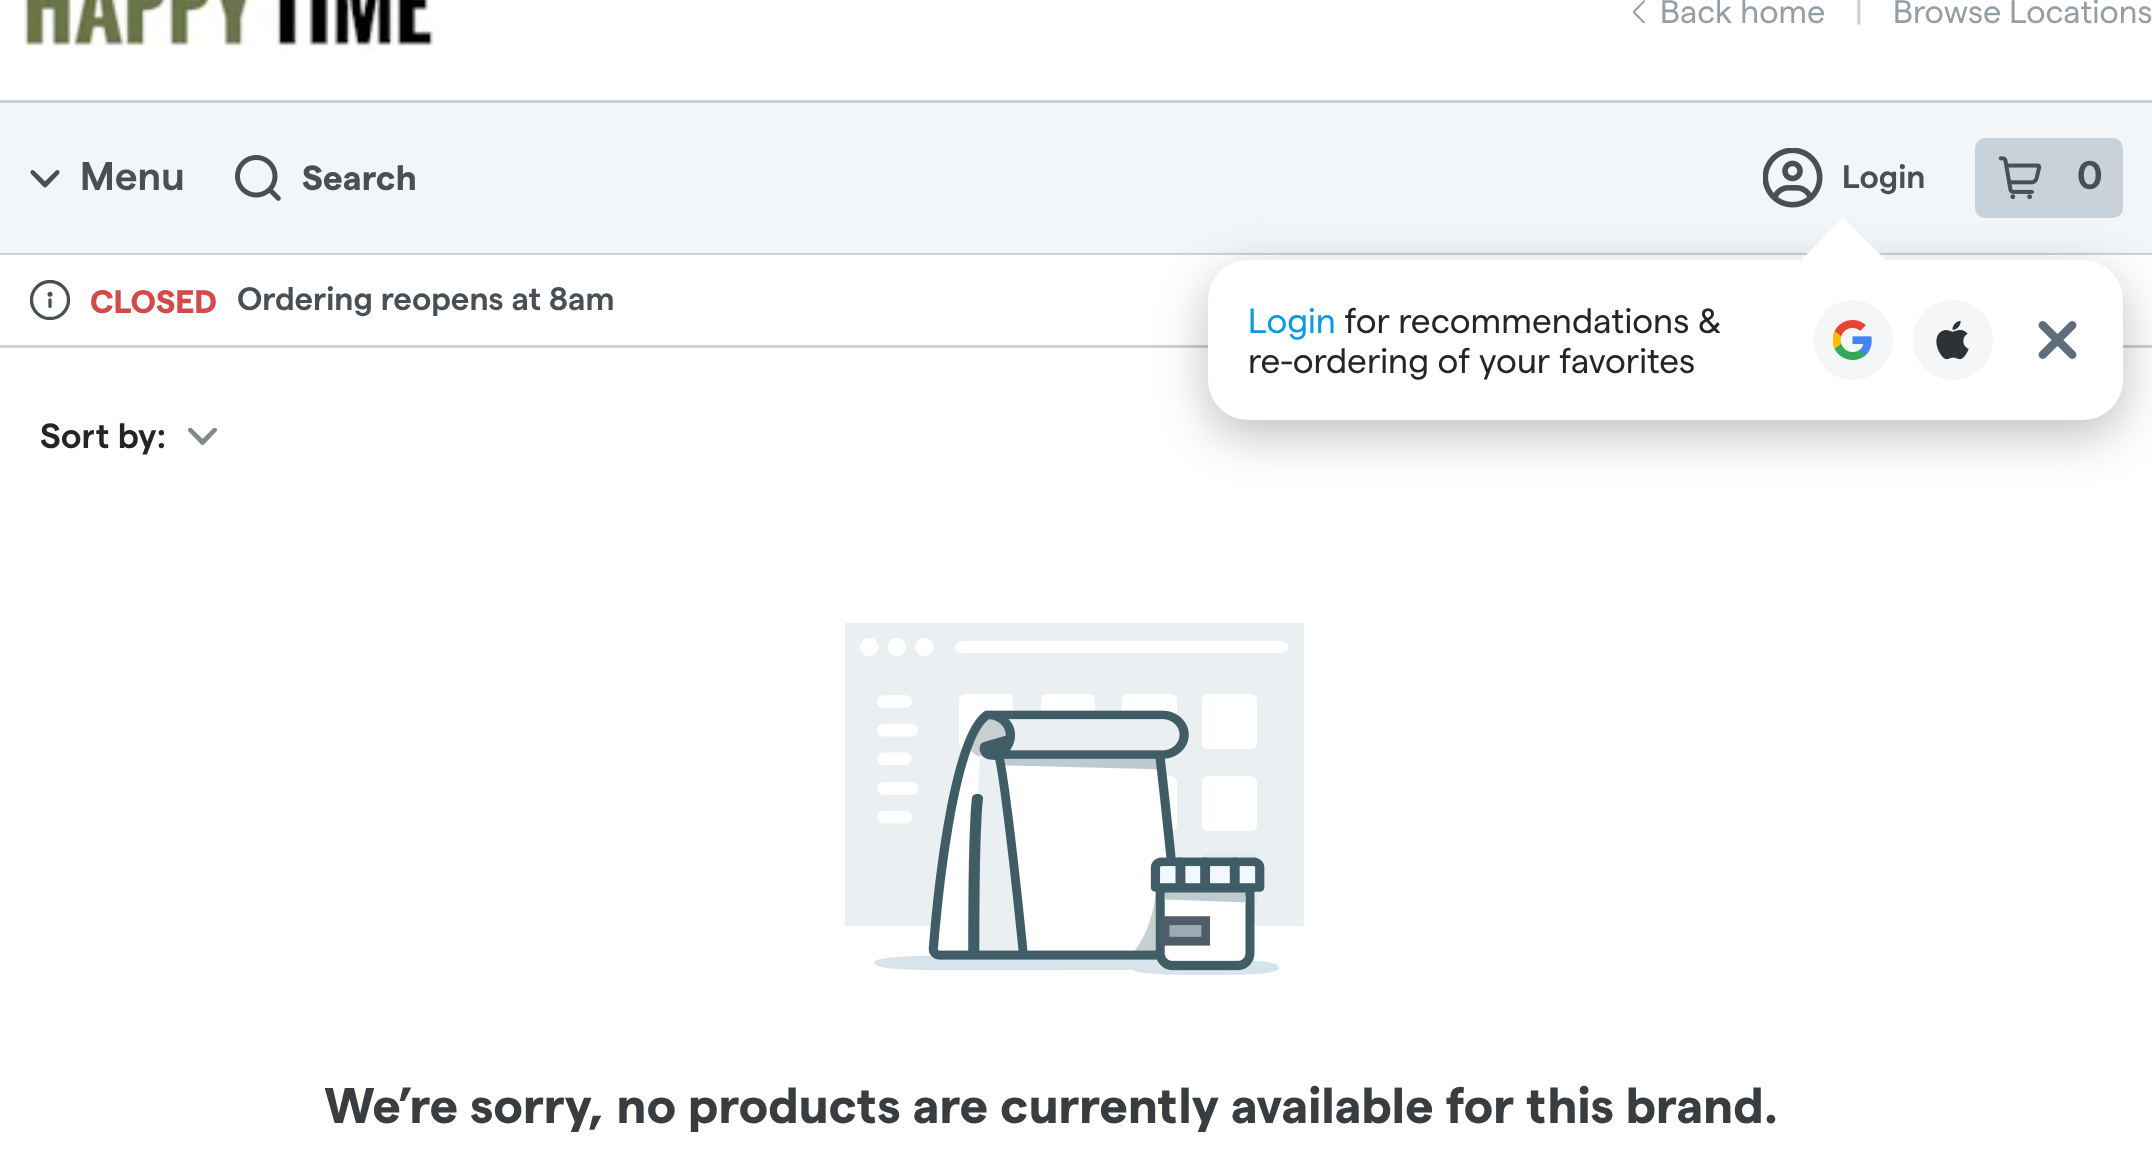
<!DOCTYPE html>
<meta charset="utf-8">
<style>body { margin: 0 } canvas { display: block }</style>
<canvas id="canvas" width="2152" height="1174"></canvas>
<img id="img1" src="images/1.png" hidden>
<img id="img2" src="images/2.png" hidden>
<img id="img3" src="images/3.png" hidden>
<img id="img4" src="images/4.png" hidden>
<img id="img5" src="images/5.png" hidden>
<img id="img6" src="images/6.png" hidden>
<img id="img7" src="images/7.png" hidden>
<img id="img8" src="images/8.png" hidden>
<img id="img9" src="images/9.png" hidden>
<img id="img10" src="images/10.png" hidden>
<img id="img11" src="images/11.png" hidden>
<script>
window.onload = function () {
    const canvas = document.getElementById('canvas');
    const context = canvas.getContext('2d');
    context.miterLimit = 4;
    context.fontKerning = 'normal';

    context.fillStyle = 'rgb(255, 255, 255)';
    context.fillRect(0, 0, 2152, 1174);
    context.fillStyle = 'rgb(197, 208, 215)';
    context.fillRect(0, 100, 2152, 3);
    context.drawImage(document.getElementById('img1'), 23, 0, 411, 50);
    context.drawImage(document.getElementById('img2'), 1633, 0, 12, 23);
    context.fillStyle = 'rgb(243, 246, 248)';
    context.fillRect(0, 103, 2152, 150);
    context.fillStyle = 'rgb(200, 210, 219)';
    context.fillRect(0, 253, 2152, 2);
    context.drawImage(document.getElementById('img3'), 30, 170, 30, 18);
    context.drawImage(document.getElementById('img4'), 235, 155, 46, 46);
    context.drawImage(document.getElementById('img5'), 1763, 148, 60, 60);
    context.beginPath();
    context.roundRect(1975, 138, 148, 80, 10);
    context.fill();
    context.drawImage(document.getElementById('img6'), 1998, 156, 44, 44);
    context.fillRect(0, 345, 2152, 3);
    context.fillStyle = 'rgba(0, 0, 0, 0.25)';
    context.filter = 'blur(25px)';
    context.beginPath();
    context.roundRect(1208, 275, 915, 160, 40);
    context.fill();
    context.filter = 'none';
    context.fillStyle = 'rgb(255, 255, 255)';
    context.beginPath();
    context.roundRect(1208, 260, 915, 160, 40);
    context.fill();
    context.fillStyle = 'rgb(245, 246, 247)';
    context.beginPath();
    context.arc(1853, 340, 40, 0, 2 * Math.PI);
    context.fill();
    context.fillStyle = 'rgb(255, 255, 255)';
    context.beginPath();
    context.moveTo(1843, 218);
    context.lineTo(1886, 260);
    context.lineTo(1843, 302);
    context.lineTo(1801, 260);
    context.closePath();
    context.fill();
    context.drawImage(document.getElementById('img7'), 1833, 320, 39, 40);
    context.fillStyle = 'rgb(245, 246, 247)';
    context.beginPath();
    context.arc(1953, 340, 40, 0, 2 * Math.PI);
    context.fill();
    context.drawImage(document.getElementById('img8'), 1936, 320, 33, 40);
    context.drawImage(document.getElementById('img9'), 2038, 321, 39, 38);
    context.save();
    context.beginPath();
    context.rect(30, 280, 40, 40);
    context.clip();
    context.beginPath();
    context.arc(50, 300, 18.5, 0, 2 * Math.PI);
    context.strokeStyle = 'rgb(72, 80, 85)';
    context.lineWidth = 3.3;
    context.stroke();
    context.restore();
    context.beginPath();
    context.moveTo(50, 300);
    context.lineTo(50, 306.5);
    context.strokeStyle = 'rgb(72, 80, 85)';
    context.lineWidth = 3.3;
    context.lineCap = 'round';
    context.stroke();
    context.fillStyle = 'rgb(72, 80, 85)';
    context.beginPath();
    context.arc(50, 294.2, 2.5, 0, 2 * Math.PI);
    context.fill();
    context.drawImage(document.getElementById('img10'), 188, 428, 29, 17);
    context.drawImage(document.getElementById('img11'), 845, 623, 459, 352);
    context.font = '32.5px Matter';
    context.fillStyle = 'rgb(150, 158, 165)';
    context.fillText('Back home', 1660, 23);
    context.fillStyle = 'rgb(203, 207, 210)';
    context.fillText('|', 1855, 23);
    context.fillStyle = 'rgb(150, 158, 165)';
    context.fillText('Browse Locations', 1893, 23);
    context.font = '600 40px Matter';
    context.fillStyle = 'rgb(72, 80, 85)';
    context.fillText('Menu', 80, 190);
    context.font = 'bold 35px Matter';
    context.fillText('Search', 302, 190);
    context.font = '600 32.5px Matter';
    context.fillText('Login', 1842, 188);
    context.font = '600 40px Matter';
    context.fillText('0', 2077, 189);
    context.font = '35px Matter';
    context.fillStyle = 'rgb(11, 153, 230)';
    context.fillText('Login', 1248, 333);
    context.fillStyle = 'rgb(36, 37, 38)';
    context.fillText('for recommendations &', 1344, 333);
    context.fillText('re-ordering of your favorites', 1248, 373);
    context.font = 'bold 32.5px Matter';
    context.fillStyle = 'rgb(211, 74, 74)';
    context.fillText('CLOSED', 90, 313);
    context.font = '600 32.5px Matter';
    context.fillStyle = 'rgb(72, 80, 85)';
    context.fillText('Ordering reopens at 8am', 237, 310);
    context.font = '600 35px Matter';
    context.fillStyle = 'rgb(36, 37, 38)';
    context.fillText('Sort by:', 40, 448);
    context.font = 'bold 50px Matter';
    context.fillStyle = 'rgb(57, 61, 64)';
    context.fillText('We’re sorry, no products are currently available for this brand.', 324, 1123);
};
</script>
